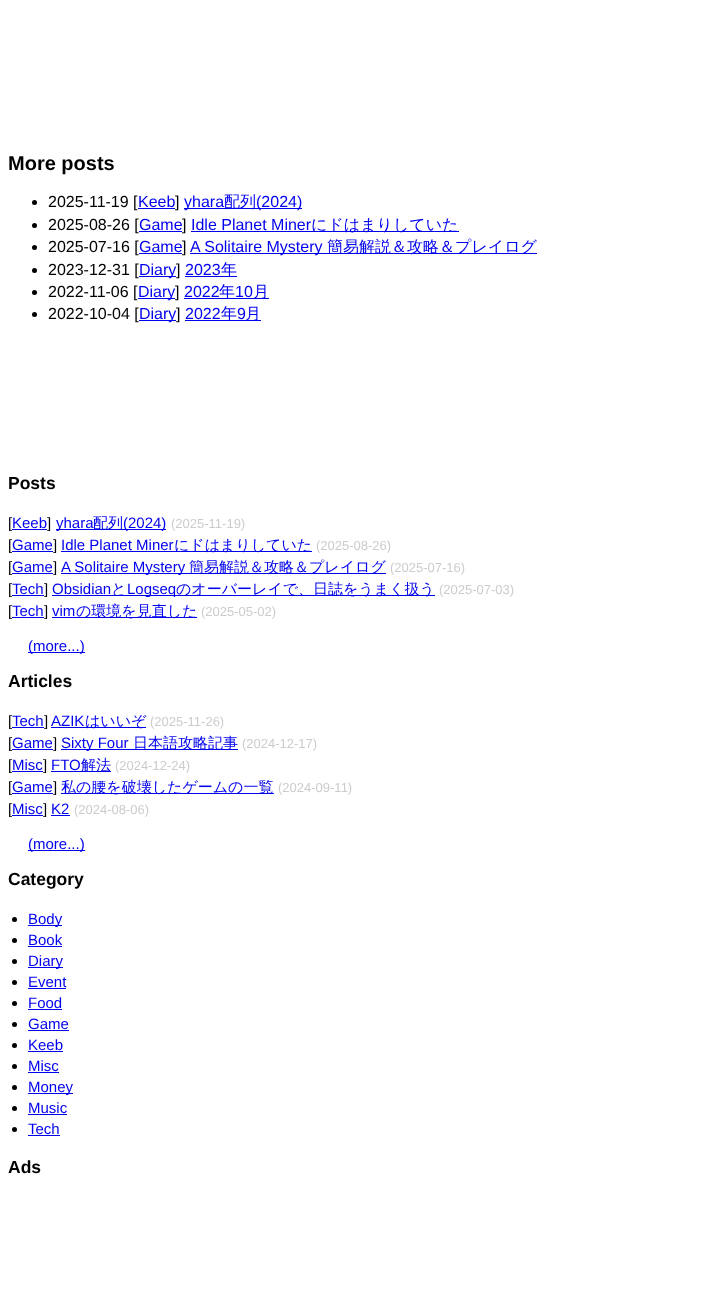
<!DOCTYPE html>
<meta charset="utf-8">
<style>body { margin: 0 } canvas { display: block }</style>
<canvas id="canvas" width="706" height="1292"></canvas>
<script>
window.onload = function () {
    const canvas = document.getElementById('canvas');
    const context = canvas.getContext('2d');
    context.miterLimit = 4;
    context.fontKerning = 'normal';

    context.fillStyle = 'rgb(255, 255, 255)';
    context.fillRect(0, 0, 706, 1292);
    context.fillStyle = 'rgb(0, 0, 0)';
    context.beginPath();
    context.arc(34.5, 202.5, 2.5, 0, 2 * Math.PI);
    context.fill();
    context.fillStyle = 'rgb(0, 0, 238)';
    context.fillRect(138, 208, 37, 1);
    context.fillRect(184, 208, 118, 1);
    context.fillStyle = 'rgb(0, 0, 0)';
    context.beginPath();
    context.arc(34.5, 225.5, 2.5, 0, 2 * Math.PI);
    context.fill();
    context.fillStyle = 'rgb(0, 0, 238)';
    context.fillRect(139, 231, 43, 1);
    context.fillRect(191, 231, 268, 1);
    context.fillStyle = 'rgb(0, 0, 0)';
    context.beginPath();
    context.arc(34.5, 247.5, 2.5, 0, 2 * Math.PI);
    context.fill();
    context.fillStyle = 'rgb(0, 0, 238)';
    context.fillRect(139, 253, 43, 1);
    context.fillRect(190, 253, 347, 1);
    context.fillStyle = 'rgb(0, 0, 0)';
    context.beginPath();
    context.arc(34.5, 270.5, 2.5, 0, 2 * Math.PI);
    context.fill();
    context.fillStyle = 'rgb(0, 0, 238)';
    context.fillRect(139, 276, 37, 1);
    context.fillRect(185, 276, 52, 1);
    context.fillStyle = 'rgb(0, 0, 0)';
    context.beginPath();
    context.arc(34.5, 292.5, 2.5, 0, 2 * Math.PI);
    context.fill();
    context.fillStyle = 'rgb(0, 0, 238)';
    context.fillRect(138, 298, 37, 1);
    context.fillRect(184, 298, 85, 1);
    context.fillStyle = 'rgb(0, 0, 0)';
    context.beginPath();
    context.arc(34.5, 314.5, 2.5, 0, 2 * Math.PI);
    context.fill();
    context.fillStyle = 'rgb(0, 0, 238)';
    context.fillRect(139, 320, 37, 1);
    context.fillRect(185, 320, 76, 1);
    context.fillRect(56, 529, 110, 1);
    context.fillRect(61, 551, 251, 1);
    context.fillRect(61, 573, 325, 1);
    context.fillRect(52, 595, 383, 1);
    context.fillRect(52, 617, 145, 1);
    context.fillRect(28, 652, 57, 1);
    context.fillRect(51, 727, 95, 1);
    context.fillRect(61, 749, 177, 1);
    context.fillRect(51, 771, 60, 1);
    context.fillRect(61, 793, 213, 1);
    context.fillRect(51, 815, 19, 1);
    context.fillRect(28, 850, 57, 1);
    context.fillStyle = 'rgb(0, 0, 0)';
    context.beginPath();
    context.arc(14.5, 919.5, 2.5, 0, 2 * Math.PI);
    context.fill();
    context.fillStyle = 'rgb(0, 0, 238)';
    context.fillRect(28, 925, 34, 1);
    context.fillStyle = 'rgb(0, 0, 0)';
    context.beginPath();
    context.arc(14.5, 940.5, 2.5, 0, 2 * Math.PI);
    context.fill();
    context.fillStyle = 'rgb(0, 0, 238)';
    context.fillRect(28, 946, 34, 1);
    context.fillStyle = 'rgb(0, 0, 0)';
    context.beginPath();
    context.arc(14.5, 961.5, 2.5, 0, 2 * Math.PI);
    context.fill();
    context.fillStyle = 'rgb(0, 0, 238)';
    context.fillRect(28, 967, 35, 1);
    context.fillStyle = 'rgb(0, 0, 0)';
    context.beginPath();
    context.arc(14.5, 982.5, 2.5, 0, 2 * Math.PI);
    context.fill();
    context.fillStyle = 'rgb(0, 0, 238)';
    context.fillRect(28, 988, 38, 1);
    context.fillStyle = 'rgb(0, 0, 0)';
    context.beginPath();
    context.arc(14.5, 1003.5, 2.5, 0, 2 * Math.PI);
    context.fill();
    context.fillStyle = 'rgb(0, 0, 238)';
    context.fillRect(28, 1009, 34, 1);
    context.fillStyle = 'rgb(0, 0, 0)';
    context.beginPath();
    context.arc(14.5, 1024.5, 2.5, 0, 2 * Math.PI);
    context.fill();
    context.fillStyle = 'rgb(0, 0, 238)';
    context.fillRect(28, 1030, 41, 1);
    context.fillStyle = 'rgb(0, 0, 0)';
    context.beginPath();
    context.arc(14.5, 1045.5, 2.5, 0, 2 * Math.PI);
    context.fill();
    context.fillStyle = 'rgb(0, 0, 238)';
    context.fillRect(28, 1051, 35, 1);
    context.fillStyle = 'rgb(0, 0, 0)';
    context.beginPath();
    context.arc(14.5, 1066.5, 2.5, 0, 2 * Math.PI);
    context.fill();
    context.fillStyle = 'rgb(0, 0, 238)';
    context.fillRect(28, 1072, 31, 1);
    context.fillStyle = 'rgb(0, 0, 0)';
    context.beginPath();
    context.arc(14.5, 1087.5, 2.5, 0, 2 * Math.PI);
    context.fill();
    context.fillStyle = 'rgb(0, 0, 238)';
    context.fillRect(28, 1093, 45, 1);
    context.fillStyle = 'rgb(0, 0, 0)';
    context.beginPath();
    context.arc(14.5, 1108.5, 2.5, 0, 2 * Math.PI);
    context.fill();
    context.fillStyle = 'rgb(0, 0, 238)';
    context.fillRect(28, 1114, 39, 1);
    context.fillStyle = 'rgb(0, 0, 0)';
    context.beginPath();
    context.arc(14.5, 1129.5, 2.5, 0, 2 * Math.PI);
    context.fill();
    context.fillStyle = 'rgb(0, 0, 238)';
    context.fillRect(28, 1135, 32, 1);
    context.font = 'bold 20px Liberation Sans';
    context.fillStyle = 'rgb(0, 0, 0)';
    context.fillText('More posts', 8, 170);
    context.font = '16px Liberation Sans';
    context.fillText('2025-11-19 [', 48, 207);
    context.fillStyle = 'rgb(0, 0, 238)';
    context.fillText('Keeb', 138, 207);
    context.fillStyle = 'rgb(0, 0, 0)';
    context.fillText(']', 175, 207);
    context.fillStyle = 'rgb(0, 0, 238)';
    context.fillText('yhara', 184, 207);
    context.font = '500 16px WenQuanYi Zen Hei';
    context.fillText('配列', 224, 207);
    context.font = '16px Liberation Sans';
    context.fillText('(2024)', 256, 207);
    context.fillStyle = 'rgb(0, 0, 0)';
    context.fillText('2025-08-26 [', 48, 230);
    context.fillStyle = 'rgb(0, 0, 238)';
    context.fillText('Game', 139, 230);
    context.fillStyle = 'rgb(0, 0, 0)';
    context.fillText(']', 182, 230);
    context.fillStyle = 'rgb(0, 0, 238)';
    context.fillText('Idle Planet Miner', 191, 230);
    context.font = '500 16px WenQuanYi Zen Hei';
    context.fillText('にドはまりしていた', 311, 230);
    context.font = '16px Liberation Sans';
    context.fillStyle = 'rgb(0, 0, 0)';
    context.fillText('2025-07-16 [', 48, 252);
    context.fillStyle = 'rgb(0, 0, 238)';
    context.fillText('Game', 139, 252);
    context.fillStyle = 'rgb(0, 0, 0)';
    context.fillText(']', 182, 252);
    context.fillStyle = 'rgb(0, 0, 238)';
    context.fillText('A Solitaire Mystery', 190, 252);
    context.font = '500 16px WenQuanYi Zen Hei';
    context.fillText('簡易解説＆攻略＆プレイログ', 327, 252);
    context.font = '16px Liberation Sans';
    context.fillStyle = 'rgb(0, 0, 0)';
    context.fillText('2023-12-31 [', 48, 275);
    context.fillStyle = 'rgb(0, 0, 238)';
    context.fillText('Diary', 139, 275);
    context.fillStyle = 'rgb(0, 0, 0)';
    context.fillText(']', 176, 275);
    context.fillStyle = 'rgb(0, 0, 238)';
    context.fillText('2023', 185, 275);
    context.font = '500 16px WenQuanYi Zen Hei';
    context.fillText('年', 221, 275);
    context.font = '16px Liberation Sans';
    context.fillStyle = 'rgb(0, 0, 0)';
    context.fillText('2022-11-06 [', 48, 297);
    context.fillStyle = 'rgb(0, 0, 238)';
    context.fillText('Diary', 138, 297);
    context.fillStyle = 'rgb(0, 0, 0)';
    context.fillText(']', 175, 297);
    context.fillStyle = 'rgb(0, 0, 238)';
    context.fillText('2022', 184, 297);
    context.font = '500 16px WenQuanYi Zen Hei';
    context.fillText('年', 219, 297);
    context.font = '16px Liberation Sans';
    context.fillText('10', 235, 297);
    context.font = '500 16px WenQuanYi Zen Hei';
    context.fillText('月', 253, 297);
    context.font = '16px Liberation Sans';
    context.fillStyle = 'rgb(0, 0, 0)';
    context.fillText('2022-10-04 [', 48, 319);
    context.fillStyle = 'rgb(0, 0, 238)';
    context.fillText('Diary', 139, 319);
    context.fillStyle = 'rgb(0, 0, 0)';
    context.fillText(']', 176, 319);
    context.fillStyle = 'rgb(0, 0, 238)';
    context.fillText('2022', 185, 319);
    context.font = '500 16px WenQuanYi Zen Hei';
    context.fillText('年', 221, 319);
    context.font = '16px Liberation Sans';
    context.fillText('9', 237, 319);
    context.font = '500 16px WenQuanYi Zen Hei';
    context.fillText('月', 245, 319);
    context.font = 'bold 17.5px Liberation Sans';
    context.fillStyle = 'rgb(0, 0, 0)';
    context.fillText('Posts', 8, 489);
    context.font = '15px Liberation Sans';
    context.fillText('[', 8, 528);
    context.fillStyle = 'rgb(0, 0, 238)';
    context.fillText('Keeb', 12, 528);
    context.fillRect(12, 529, 35, 1);
    context.fillStyle = 'rgb(0, 0, 0)';
    context.fillText(']', 47, 528);
    context.fillStyle = 'rgb(0, 0, 238)';
    context.fillText('yhara', 56, 528);
    context.font = '500 15px WenQuanYi Zen Hei';
    context.fillText('配列', 93, 528);
    context.font = '15px Liberation Sans';
    context.fillText('(2024)', 123, 528);
    context.font = '13px Liberation Sans';
    context.fillStyle = 'rgb(204, 204, 204)';
    context.fillText('(2025-11-19)', 171, 528);
    context.font = '15px Liberation Sans';
    context.fillStyle = 'rgb(0, 0, 0)';
    context.fillText('[', 8, 550);
    context.fillStyle = 'rgb(0, 0, 238)';
    context.fillText('Game', 12, 550);
    context.fillRect(12, 551, 41, 1);
    context.fillStyle = 'rgb(0, 0, 0)';
    context.fillText(']', 53, 550);
    context.fillStyle = 'rgb(0, 0, 238)';
    context.fillText('Idle Planet Miner', 61, 550);
    context.font = '500 15px WenQuanYi Zen Hei';
    context.fillText('にドはまりしていた', 174, 550);
    context.font = '13px Liberation Sans';
    context.fillStyle = 'rgb(204, 204, 204)';
    context.fillText('(2025-08-26)', 316, 550);
    context.font = '15px Liberation Sans';
    context.fillStyle = 'rgb(0, 0, 0)';
    context.fillText('[', 8, 572);
    context.fillStyle = 'rgb(0, 0, 238)';
    context.fillText('Game', 12, 572);
    context.fillRect(12, 573, 41, 1);
    context.fillStyle = 'rgb(0, 0, 0)';
    context.fillText(']', 53, 572);
    context.fillStyle = 'rgb(0, 0, 238)';
    context.fillText('A Solitaire Mystery', 61, 572);
    context.font = '500 15px WenQuanYi Zen Hei';
    context.fillText('簡易解説＆攻略＆プレイログ', 189, 572);
    context.font = '13px Liberation Sans';
    context.fillStyle = 'rgb(204, 204, 204)';
    context.fillText('(2025-07-16)', 390, 572);
    context.font = '15px Liberation Sans';
    context.fillStyle = 'rgb(0, 0, 0)';
    context.fillText('[', 8, 594);
    context.fillStyle = 'rgb(0, 0, 238)';
    context.fillText('Tech', 12, 594);
    context.fillRect(12, 595, 32, 1);
    context.fillStyle = 'rgb(0, 0, 0)';
    context.fillText(']', 44, 594);
    context.fillStyle = 'rgb(0, 0, 238)';
    context.fillText('Obsidian', 52, 594);
    context.font = '500 15px WenQuanYi Zen Hei';
    context.fillText('と', 111, 594);
    context.font = '15px Liberation Sans';
    context.fillText('Logseq', 127, 594);
    context.font = '500 15px WenQuanYi Zen Hei';
    context.fillText('のオーバーレイで、日誌をうまく扱う', 176, 594);
    context.font = '13px Liberation Sans';
    context.fillStyle = 'rgb(204, 204, 204)';
    context.fillText('(2025-07-03)', 439, 594);
    context.font = '15px Liberation Sans';
    context.fillStyle = 'rgb(0, 0, 0)';
    context.fillText('[', 8, 616);
    context.fillStyle = 'rgb(0, 0, 238)';
    context.fillText('Tech', 12, 616);
    context.fillRect(12, 617, 32, 1);
    context.fillStyle = 'rgb(0, 0, 0)';
    context.fillText(']', 44, 616);
    context.fillStyle = 'rgb(0, 0, 238)';
    context.fillText('vim', 52, 616);
    context.font = '500 15px WenQuanYi Zen Hei';
    context.fillText('の環境を見直した', 76, 616);
    context.font = '13px Liberation Sans';
    context.fillStyle = 'rgb(204, 204, 204)';
    context.fillText('(2025-05-02)', 201, 616);
    context.font = '15px Liberation Sans';
    context.fillStyle = 'rgb(0, 0, 238)';
    context.fillText('(more...)', 28, 651);
    context.font = 'bold 17.5px Liberation Sans';
    context.fillStyle = 'rgb(0, 0, 0)';
    context.fillText('Articles', 8, 687);
    context.font = '15px Liberation Sans';
    context.fillText('[', 8, 726);
    context.fillStyle = 'rgb(0, 0, 238)';
    context.fillText('Tech', 12, 726);
    context.fillRect(12, 727, 32, 1);
    context.fillStyle = 'rgb(0, 0, 0)';
    context.fillText(']', 44, 726);
    context.fillStyle = 'rgb(0, 0, 238)';
    context.fillText('AZIK', 51, 726);
    context.font = '500 15px WenQuanYi Zen Hei';
    context.fillText('はいいぞ', 85, 726);
    context.font = '13px Liberation Sans';
    context.fillStyle = 'rgb(204, 204, 204)';
    context.fillText('(2025-11-26)', 150, 726);
    context.font = '15px Liberation Sans';
    context.fillStyle = 'rgb(0, 0, 0)';
    context.fillText('[', 8, 748);
    context.fillStyle = 'rgb(0, 0, 238)';
    context.fillText('Game', 12, 748);
    context.fillRect(12, 749, 41, 1);
    context.fillStyle = 'rgb(0, 0, 0)';
    context.fillText(']', 53, 748);
    context.fillStyle = 'rgb(0, 0, 238)';
    context.fillText('Sixty Four', 61, 748);
    context.font = '500 15px WenQuanYi Zen Hei';
    context.fillText('日本語攻略記事', 133, 748);
    context.font = '13px Liberation Sans';
    context.fillStyle = 'rgb(204, 204, 204)';
    context.fillText('(2024-12-17)', 242, 748);
    context.font = '15px Liberation Sans';
    context.fillStyle = 'rgb(0, 0, 0)';
    context.fillText('[', 8, 770);
    context.fillStyle = 'rgb(0, 0, 238)';
    context.fillText('Misc', 12, 770);
    context.fillRect(12, 771, 31, 1);
    context.fillStyle = 'rgb(0, 0, 0)';
    context.fillText(']', 43, 770);
    context.fillStyle = 'rgb(0, 0, 238)';
    context.fillText('FTO', 51, 770);
    context.font = '500 15px WenQuanYi Zen Hei';
    context.fillText('解法', 81, 770);
    context.font = '13px Liberation Sans';
    context.fillStyle = 'rgb(204, 204, 204)';
    context.fillText('(2024-12-24)', 115, 770);
    context.font = '15px Liberation Sans';
    context.fillStyle = 'rgb(0, 0, 0)';
    context.fillText('[', 8, 792);
    context.fillStyle = 'rgb(0, 0, 238)';
    context.fillText('Game', 12, 792);
    context.fillRect(12, 793, 41, 1);
    context.fillStyle = 'rgb(0, 0, 0)';
    context.fillText(']', 53, 792);
    context.font = '500 15px WenQuanYi Zen Hei';
    context.fillStyle = 'rgb(0, 0, 238)';
    context.fillText('私の腰を破壊したゲームの一覧', 61, 792);
    context.font = '13px Liberation Sans';
    context.fillStyle = 'rgb(204, 204, 204)';
    context.fillText('(2024-09-11)', 278, 792);
    context.font = '15px Liberation Sans';
    context.fillStyle = 'rgb(0, 0, 0)';
    context.fillText('[', 8, 814);
    context.fillStyle = 'rgb(0, 0, 238)';
    context.fillText('Misc', 12, 814);
    context.fillRect(12, 815, 31, 1);
    context.fillStyle = 'rgb(0, 0, 0)';
    context.fillText(']', 43, 814);
    context.fillStyle = 'rgb(0, 0, 238)';
    context.fillText('K2', 51, 814);
    context.font = '13px Liberation Sans';
    context.fillStyle = 'rgb(204, 204, 204)';
    context.fillText('(2024-08-06)', 74, 814);
    context.font = '15px Liberation Sans';
    context.fillStyle = 'rgb(0, 0, 238)';
    context.fillText('(more...)', 28, 849);
    context.font = 'bold 17.5px Liberation Sans';
    context.fillStyle = 'rgb(0, 0, 0)';
    context.fillText('Category', 8, 885);
    context.font = '15px Liberation Sans';
    context.fillStyle = 'rgb(0, 0, 238)';
    context.fillText('Body', 28, 924);
    context.fillText('Book', 28, 945);
    context.fillText('Diary', 28, 966);
    context.fillText('Event', 28, 987);
    context.fillText('Food', 28, 1008);
    context.fillText('Game', 28, 1029);
    context.fillText('Keeb', 28, 1050);
    context.fillText('Misc', 28, 1071);
    context.fillText('Money', 28, 1092);
    context.fillText('Music', 28, 1113);
    context.fillText('Tech', 28, 1134);
    context.font = 'bold 17.5px Liberation Sans';
    context.fillStyle = 'rgb(0, 0, 0)';
    context.fillText('Ads', 8, 1173);
};
</script>
